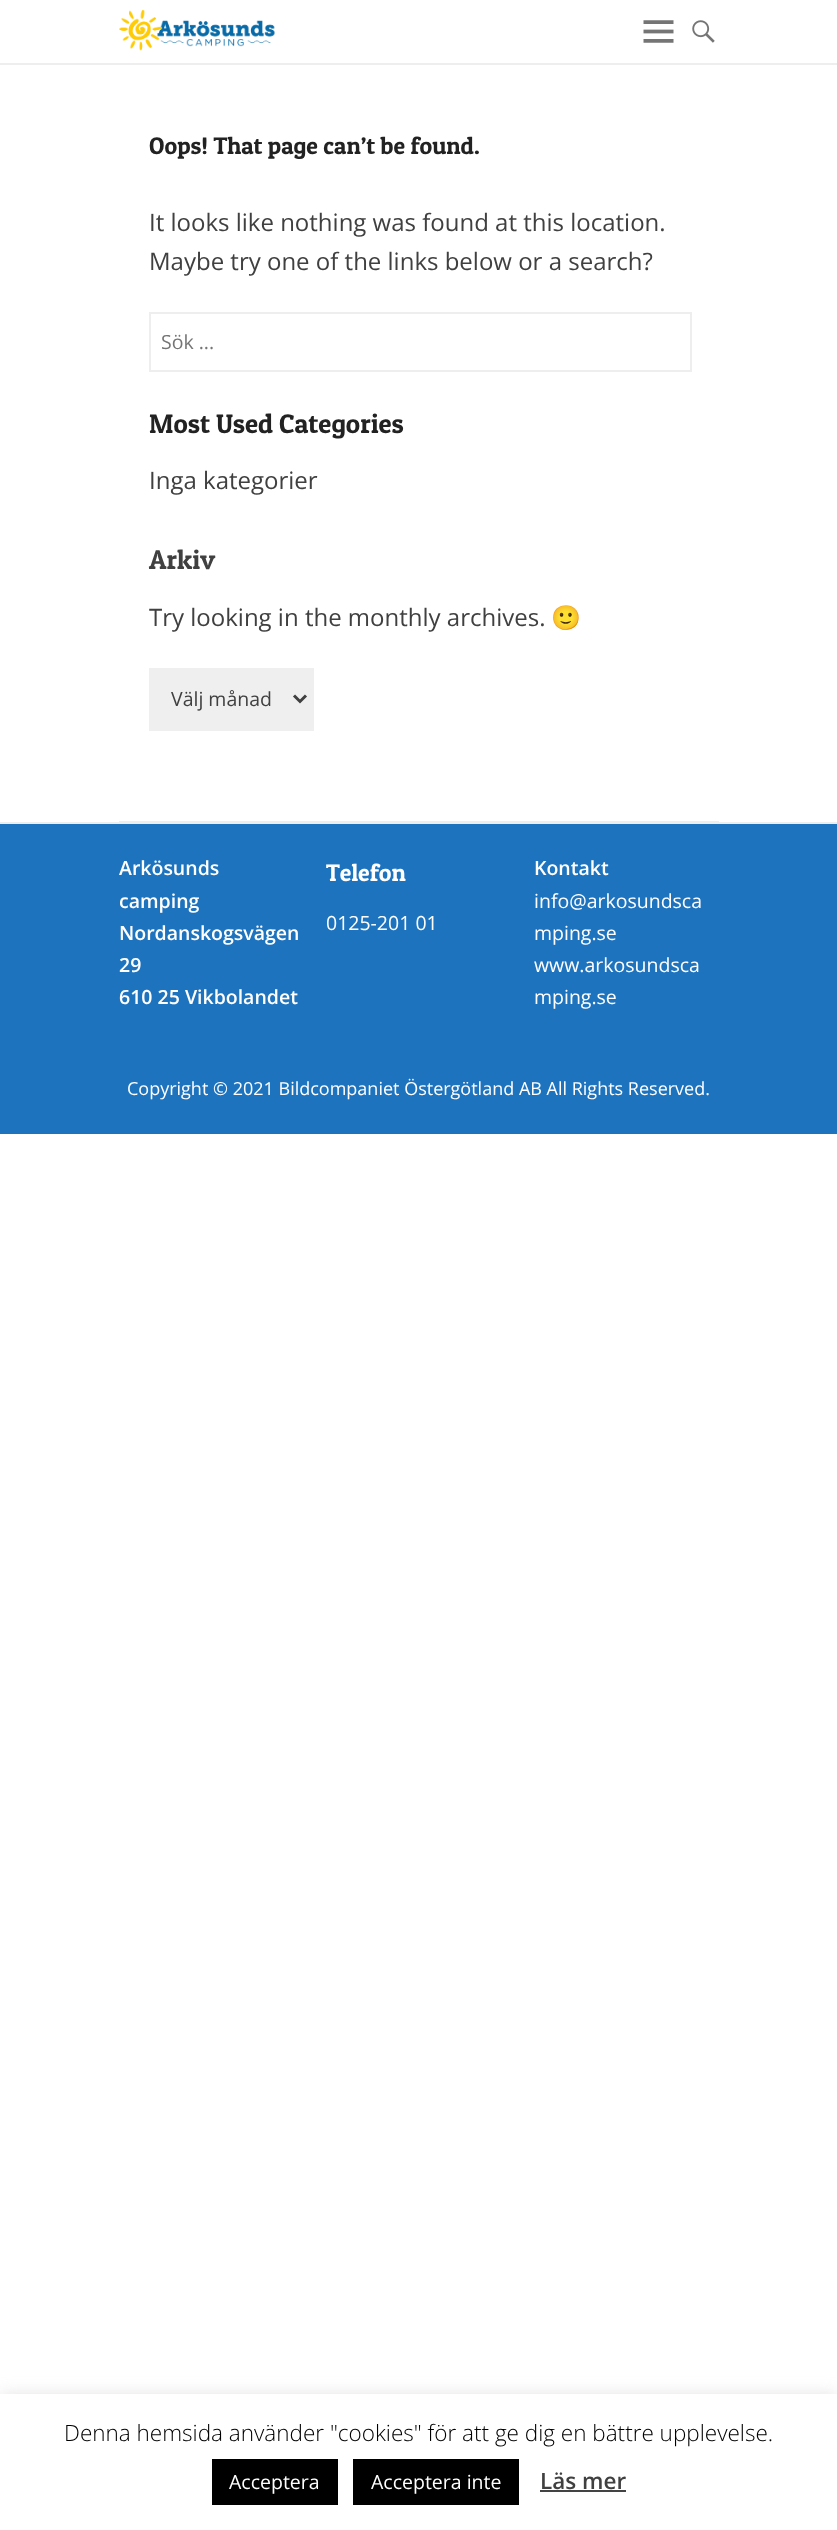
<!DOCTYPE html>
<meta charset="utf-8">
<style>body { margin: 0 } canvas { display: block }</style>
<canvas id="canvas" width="837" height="2530"></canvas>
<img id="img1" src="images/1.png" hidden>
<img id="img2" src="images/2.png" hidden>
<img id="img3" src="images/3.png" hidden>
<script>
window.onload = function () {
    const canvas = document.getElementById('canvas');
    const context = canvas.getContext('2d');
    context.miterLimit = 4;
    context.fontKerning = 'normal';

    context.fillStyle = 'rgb(255, 255, 255)';
    context.fillRect(0, 0, 837, 2530);
    context.fillStyle = 'rgb(238, 238, 238)';
    context.fillRect(0, 63, 837, 2);
    context.drawImage(document.getElementById('img1'), 119, 9, 156, 42);
    context.drawImage(document.getElementById('img2'), 643, 20, 31, 23);
    context.drawImage(document.getElementById('img3'), 692, 20, 23, 23);
    context.fillRect(119, 821, 600, 1);
    context.strokeStyle = 'rgb(238, 238, 238)';
    context.lineWidth = 2;
    context.strokeRect(150, 313, 541, 58);
    context.fillStyle = 'rgb(239, 239, 239)';
    context.fillRect(149, 668, 165, 63);
    context.beginPath();
    context.moveTo(294, 695.5);
    context.lineTo(300, 701.5);
    context.lineTo(306, 695.5);
    context.strokeStyle = 'rgb(64, 64, 64)';
    context.lineWidth = 3;
    context.stroke();
    context.fillStyle = 'rgb(238, 238, 238)';
    context.fillRect(0, 822, 837, 2);
    context.fillStyle = 'rgb(30, 115, 190)';
    context.fillRect(0, 824, 837, 310);
    context.fillStyle = 'rgba(172, 171, 171, 0.3)';
    context.filter = 'blur(7.5px)';
    context.beginPath();
    context.rect(0, 2393, 837, 136);
    context.fill();
    context.filter = 'none';
    context.fillStyle = 'rgb(255, 255, 255)';
    context.fillRect(0, 2394, 837, 136);
    context.fillStyle = 'rgb(0, 0, 0)';
    context.fillRect(212, 2459, 126, 46);
    context.fillRect(353, 2459, 166, 46);
    context.fillStyle = 'rgb(68, 68, 68)';
    context.fillRect(540, 2490, 86, 2);
    context.font = '24px Patua One';
    context.fillStyle = 'rgb(34, 34, 34)';
    context.fillText('Oops! That page can’t be found.', 149, 154);
    context.font = '24px Open Sans';
    context.fillStyle = 'rgb(64, 64, 64)';
    context.fillText('It looks like nothing was found at this location.', 149, 231);
    context.fillText('Maybe try one of the links below or a search?', 149, 270);
    context.font = '19.5px Open Sans';
    context.fillStyle = 'rgb(117, 117, 117)';
    context.fillText('Sök ...', 161, 349);
    context.font = '27px Patua One';
    context.fillStyle = 'rgb(34, 34, 34)';
    context.fillText('Most Used Categories', 149, 433);
    context.font = '24px Open Sans';
    context.fillStyle = 'rgb(64, 64, 64)';
    context.fillText('Inga kategorier', 149, 489);
    context.font = '27px Patua One';
    context.fillText('Arkiv', 149, 569);
    context.font = '24px Open Sans';
    context.fillText('Try looking in the monthly archives.', 149, 626);
    context.font = '24px Noto Color Emoji';
    context.fillText('🙂', 551, 626);
    context.font = '19.5px Open Sans';
    context.fillText('Välj månad', 171, 706);
    context.font = '600 19.5px Open Sans';
    context.fillStyle = 'rgb(255, 255, 255)';
    context.fillText('Arkösunds', 119, 875);
    context.fillText('camping', 119, 908);
    context.fillText('Nordanskogsvägen', 119, 940);
    context.fillText('29', 119, 972);
    context.fillText('610 25 Vikbolandet', 119, 1004);
    context.font = '24px Patua One';
    context.fillText('Telefon', 326, 881);
    context.font = '19.5px Open Sans';
    context.fillText('0125-201 01', 326, 930);
    context.font = '600 19.5px Open Sans';
    context.fillText('Kontakt', 534, 875);
    context.font = '19.5px Open Sans';
    context.fillText('info@arkosundsca', 534, 908);
    context.fillText('mping.se', 534, 940);
    context.fillText('www.arkosundsca', 534, 972);
    context.fillText('mping.se', 534, 1004);
    context.font = '18px Open Sans';
    context.fillText('Copyright © 2021 Bildcompaniet Östergötland AB All Rights Reserved.', 127, 1095);
    context.font = '300 22.5px Open Sans';
    context.fillStyle = 'rgb(0, 0, 0)';
    context.fillText('Denna hemsida använder "cookies" för att ge dig en bättre upplevelse.', 64, 2441);
    context.font = '19.5px Open Sans';
    context.fillStyle = 'rgb(255, 255, 255)';
    context.fillText('Acceptera', 229, 2489);
    context.fillText('Acceptera inte', 371, 2489);
    context.font = '600 22.5px Open Sans';
    context.fillStyle = 'rgb(64, 64, 64)';
    context.fillText('Läs mer', 540, 2489);
};
</script>
